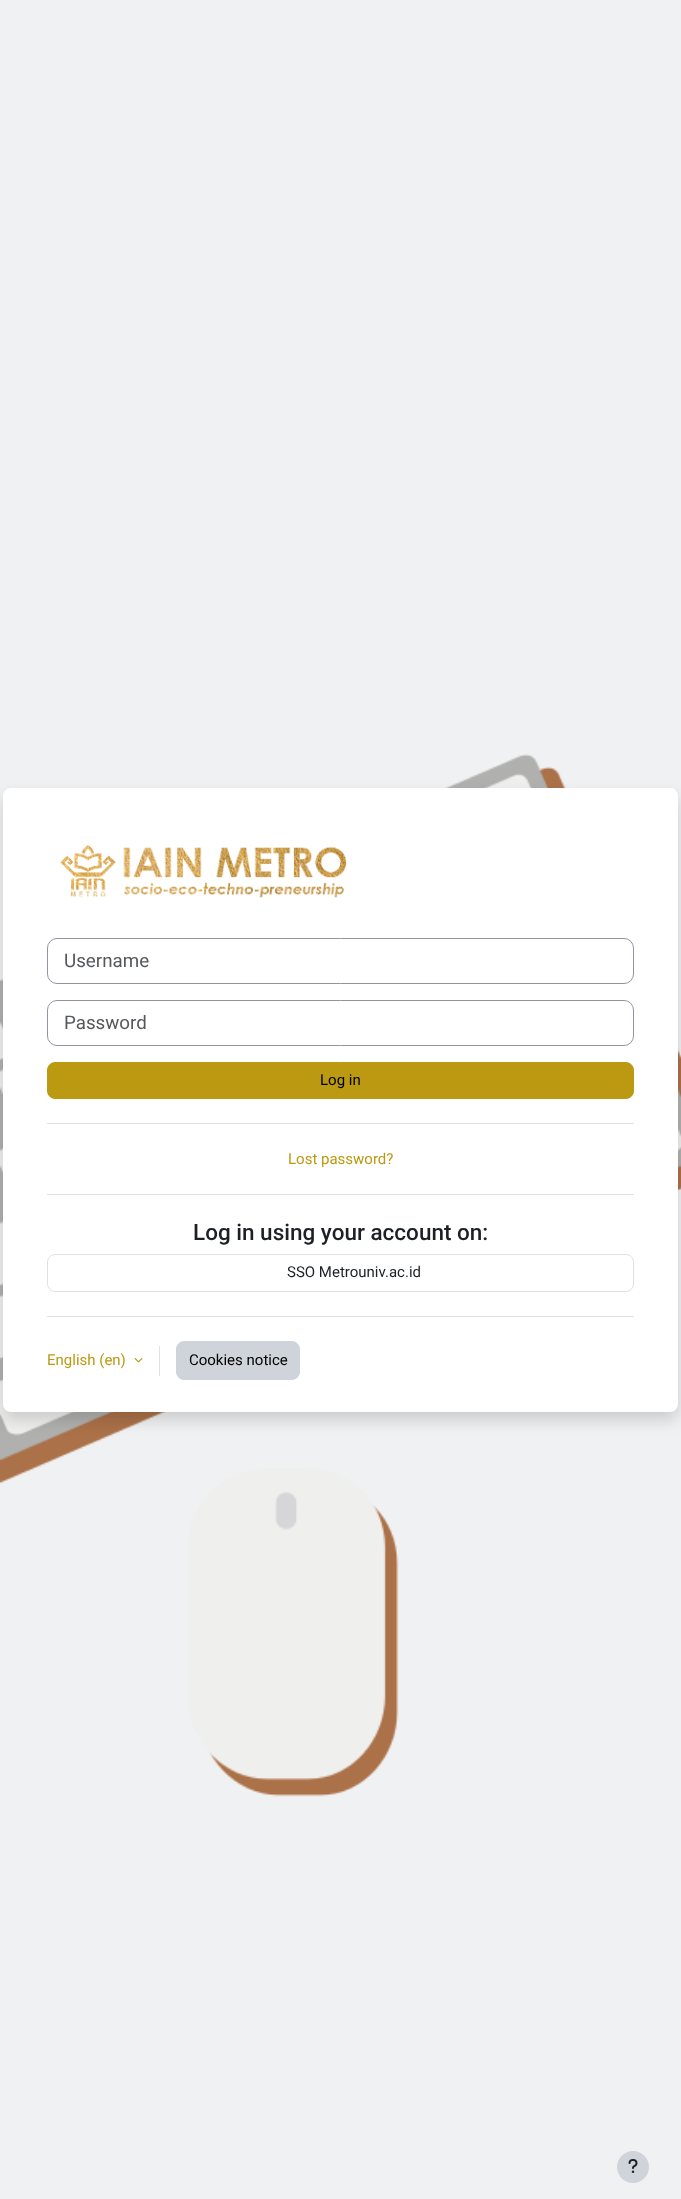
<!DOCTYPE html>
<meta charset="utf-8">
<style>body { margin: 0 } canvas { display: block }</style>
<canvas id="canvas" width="681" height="2199"></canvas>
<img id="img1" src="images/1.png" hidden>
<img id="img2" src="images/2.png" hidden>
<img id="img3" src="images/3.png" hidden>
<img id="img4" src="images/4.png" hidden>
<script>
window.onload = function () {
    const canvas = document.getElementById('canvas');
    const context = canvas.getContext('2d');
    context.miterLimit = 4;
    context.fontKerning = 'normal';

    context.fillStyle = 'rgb(255, 255, 255)';
    context.fillRect(0, 0, 681, 2199);
    context.drawImage(document.getElementById('img1'), 0, 0, 681, 2199);
    context.fillStyle = 'rgba(0, 0, 0, 0.15)';
    context.filter = 'blur(8px)';
    context.beginPath();
    context.roundRect(3, 796, 675, 624, 8);
    context.fill();
    context.filter = 'none';
    context.fillStyle = 'rgb(255, 255, 255)';
    context.beginPath();
    context.roundRect(3, 788, 675, 624, 8);
    context.fill();
    context.drawImage(document.getElementById('img2'), 60, 844, 287, 54);
    context.beginPath();
    context.roundRect(47.5, 938.5, 586, 45, 9.5);
    context.strokeStyle = 'rgb(143, 149, 158)';
    context.stroke();
    context.beginPath();
    context.roundRect(47.5, 1000.5, 586, 45, 9.5);
    context.stroke();
    context.fillStyle = 'rgb(187, 153, 17)';
    context.beginPath();
    context.roundRect(47.5, 1062.5, 586, 36, 7.5);
    context.fill();
    context.strokeStyle = 'rgb(187, 153, 17)';
    context.stroke();
    context.fillStyle = 'rgb(222, 226, 230)';
    context.fillRect(47, 1123, 587, 1);
    context.fillRect(47, 1194, 587, 1);
    context.beginPath();
    context.roundRect(47.5, 1254.5, 586, 37, 7.5);
    context.strokeStyle = 'rgb(222, 226, 230)';
    context.stroke();
    context.fillRect(47, 1316, 587, 1);
    context.drawImage(document.getElementById('img3'), 134, 1358, 9, 5);
    context.fillRect(159, 1346, 1, 30);
    context.fillStyle = 'rgb(206, 212, 218)';
    context.beginPath();
    context.roundRect(176.5, 1341.5, 123, 38, 7.5);
    context.fill();
    context.strokeStyle = 'rgb(206, 212, 218)';
    context.stroke();
    context.beginPath();
    context.arc(633, 2167, 16, 0, 2 * Math.PI);
    context.fill();
    context.drawImage(document.getElementById('img4'), 628, 2159, 10, 14);
    context.font = '18.75px Roboto';
    context.fillStyle = 'rgb(86, 89, 92)';
    context.fillText('Username', 64, 967);
    context.fillText('Password', 64, 1029);
    context.font = '15px Roboto';
    context.fillStyle = 'rgb(0, 0, 0)';
    context.fillText('Log in', 320, 1085);
    context.fillStyle = 'rgb(187, 153, 17)';
    context.fillText('Lost password?', 288, 1164);
    context.font = '500 22.5px Roboto';
    context.fillStyle = 'rgb(29, 33, 37)';
    context.fillText('Log in using your account on:', 193, 1240);
    context.font = '15px Roboto';
    context.fillText('SSO Metrouniv.ac.id', 287, 1277);
    context.fillStyle = 'rgb(187, 153, 17)';
    context.fillText('English (en)', 47, 1365);
    context.fillStyle = 'rgb(0, 0, 0)';
    context.fillText('Cookies notice', 189, 1365);
};
</script>
